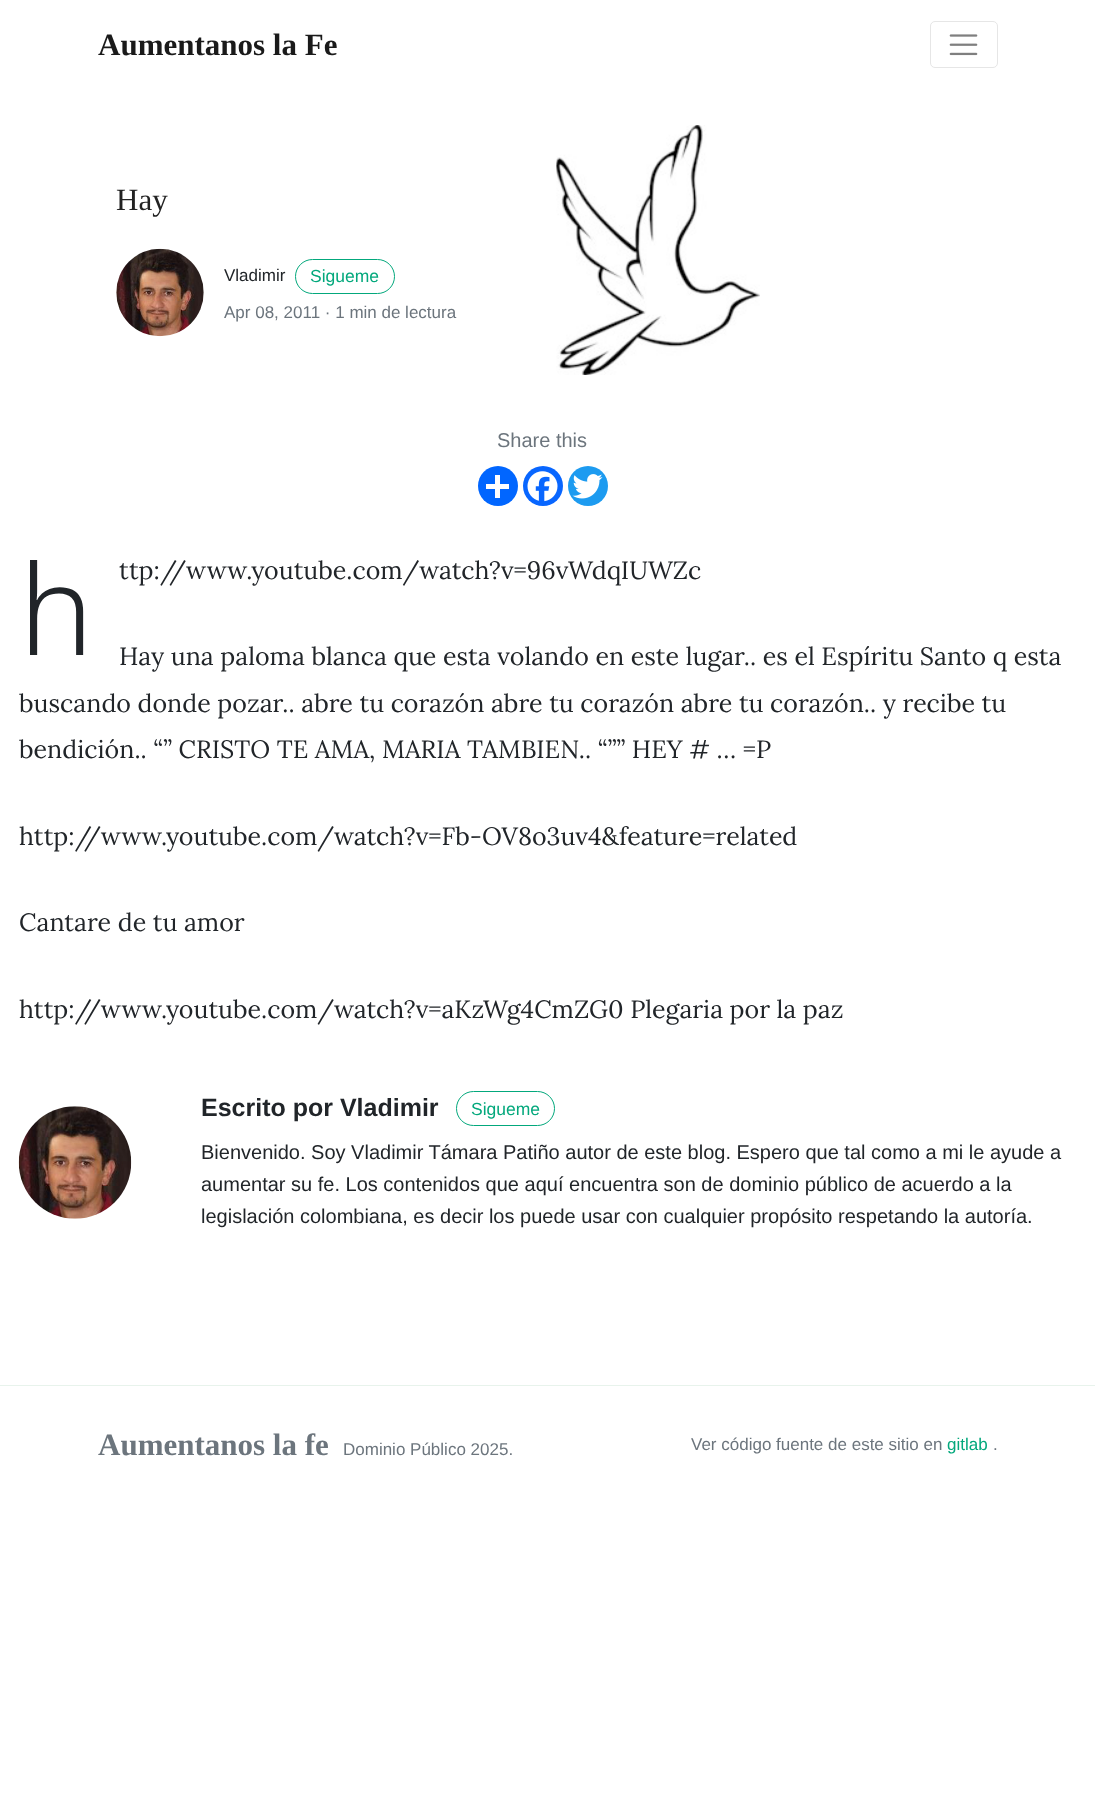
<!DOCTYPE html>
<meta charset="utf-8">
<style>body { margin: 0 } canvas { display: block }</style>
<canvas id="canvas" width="1095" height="1807"></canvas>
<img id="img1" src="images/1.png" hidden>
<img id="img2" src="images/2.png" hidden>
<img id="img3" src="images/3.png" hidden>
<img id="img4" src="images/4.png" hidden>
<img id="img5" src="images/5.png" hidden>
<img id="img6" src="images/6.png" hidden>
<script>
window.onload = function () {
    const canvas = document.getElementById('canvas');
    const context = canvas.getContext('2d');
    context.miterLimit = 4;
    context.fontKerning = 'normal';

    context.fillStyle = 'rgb(255, 255, 255)';
    context.fillRect(0, 0, 1095, 1807);
    context.beginPath();
    context.roundRect(930.5, 21.5, 67, 46, 4.5);
    context.strokeStyle = 'rgb(230, 230, 230)';
    context.stroke();
    context.drawImage(document.getElementById('img1'), 949, 34, 29, 22);
    context.drawImage(document.getElementById('img2'), 116, 248, 88, 89);
    context.beginPath();
    context.roundRect(295.5, 259.5, 99, 34, 17);
    context.strokeStyle = 'rgb(3, 168, 124)';
    context.stroke();
    context.drawImage(document.getElementById('img3'), 556, 125, 204, 250);
    context.fillStyle = 'rgb(1, 102, 255)';
    context.beginPath();
    context.arc(498, 486, 20, 0, 2 * Math.PI);
    context.fill();
    context.fillStyle = 'rgb(255, 255, 255)';
    context.fillRect(495, 475, 5, 23);
    context.fillRect(486, 484, 23, 5);
    context.fillStyle = 'rgb(8, 102, 255)';
    context.beginPath();
    context.arc(543, 486, 20, 0, 2 * Math.PI);
    context.fill();
    context.drawImage(document.getElementById('img4'), 527, 471, 31, 31);
    context.fillStyle = 'rgb(29, 155, 240)';
    context.beginPath();
    context.arc(588, 486, 20, 0, 2 * Math.PI);
    context.fill();
    context.drawImage(document.getElementById('img5'), 572, 474, 31, 25);
    context.drawImage(document.getElementById('img6'), 18, 1106, 114, 113);
    context.beginPath();
    context.roundRect(456.5, 1091.5, 98, 34, 17);
    context.stroke();
    context.fillStyle = 'rgb(232, 243, 236)';
    context.fillRect(0, 1385, 1095, 1);
    context.font = 'bold 31px Liberation Serif';
    context.fillStyle = 'rgb(26, 26, 26)';
    context.fillText('Aumentanos la Fe', 98, 55);
    context.font = '31px Liberation Serif';
    context.fillStyle = 'rgb(34, 34, 34)';
    context.fillText('Hay', 116, 210);
    context.font = '17px Liberation Sans';
    context.fillStyle = 'rgb(33, 37, 41)';
    context.fillText('Vladimir', 224, 281);
    context.font = '17.5px Liberation Sans';
    context.fillStyle = 'rgb(3, 168, 124)';
    context.fillText('Sigueme', 310, 282);
    context.font = '17px Liberation Sans';
    context.fillStyle = 'rgb(108, 117, 125)';
    context.fillText('Apr 08, 2011 · 1 min de lectura', 224, 318);
    context.font = '20px Liberation Sans';
    context.fillText('Share this', 497, 447);
    context.font = '300 125px Noto Sans';
    context.fillStyle = 'rgb(33, 37, 41)';
    context.fillText('h', 19, 655);
    context.font = '25px Lora';
    context.fillText('ttp://www.youtube.com/watch?v=96vWdqIUWZc', 119, 579);
    context.fillText('Hay una paloma blanca que esta volando en este lugar.. es el Espíritu Santo q esta', 119, 665);
    context.fillText('buscando donde pozar.. abre tu corazón abre tu corazón abre tu corazón.. y recibe tu', 19, 712);
    context.fillText('bendición.. “” CRISTO TE AMA, MARIA TAMBIEN.. “”” HEY # … =P', 19, 758);
    context.fillText('http://www.youtube.com/watch?v=Fb-OV8o3uv4&feature=related', 19, 845);
    context.fillText('Cantare de tu amor', 19, 931);
    context.fillText('http://www.youtube.com/watch?v=aKzWg4CmZG0 Plegaria por la paz', 19, 1018);
    context.font = 'bold 25px Liberation Sans';
    context.fillText('Escrito por Vladimir', 201, 1116);
    context.font = '17.5px Liberation Sans';
    context.fillStyle = 'rgb(3, 168, 124)';
    context.fillText('Sigueme', 471, 1115);
    context.font = '20px Liberation Sans';
    context.fillStyle = 'rgb(33, 37, 41)';
    context.fillText('Bienvenido. Soy Vladimir Támara Patiño autor de este blog. Espero que tal como a mi le ayude a', 201, 1159);
    context.fillText('aumentar su fe. Los contenidos que aquí encuentra son de dominio público de acuerdo a la', 201, 1191);
    context.fillText('legislación colombiana, es decir los puede usar con cualquier propósito respetando la autoría.', 201, 1223);
    context.font = 'bold 31px Liberation Serif';
    context.fillStyle = 'rgb(108, 117, 125)';
    context.fillText('Aumentanos la fe', 98, 1455);
    context.font = '17px Liberation Sans';
    context.fillText('Dominio Público 2025.', 343, 1455);
    context.fillText('Ver código fuente de este sitio en', 691, 1450);
    context.fillStyle = 'rgb(3, 168, 124)';
    context.fillText('gitlab', 947, 1450);
    context.fillStyle = 'rgb(108, 117, 125)';
    context.fillText('.', 993, 1450);
};
</script>
